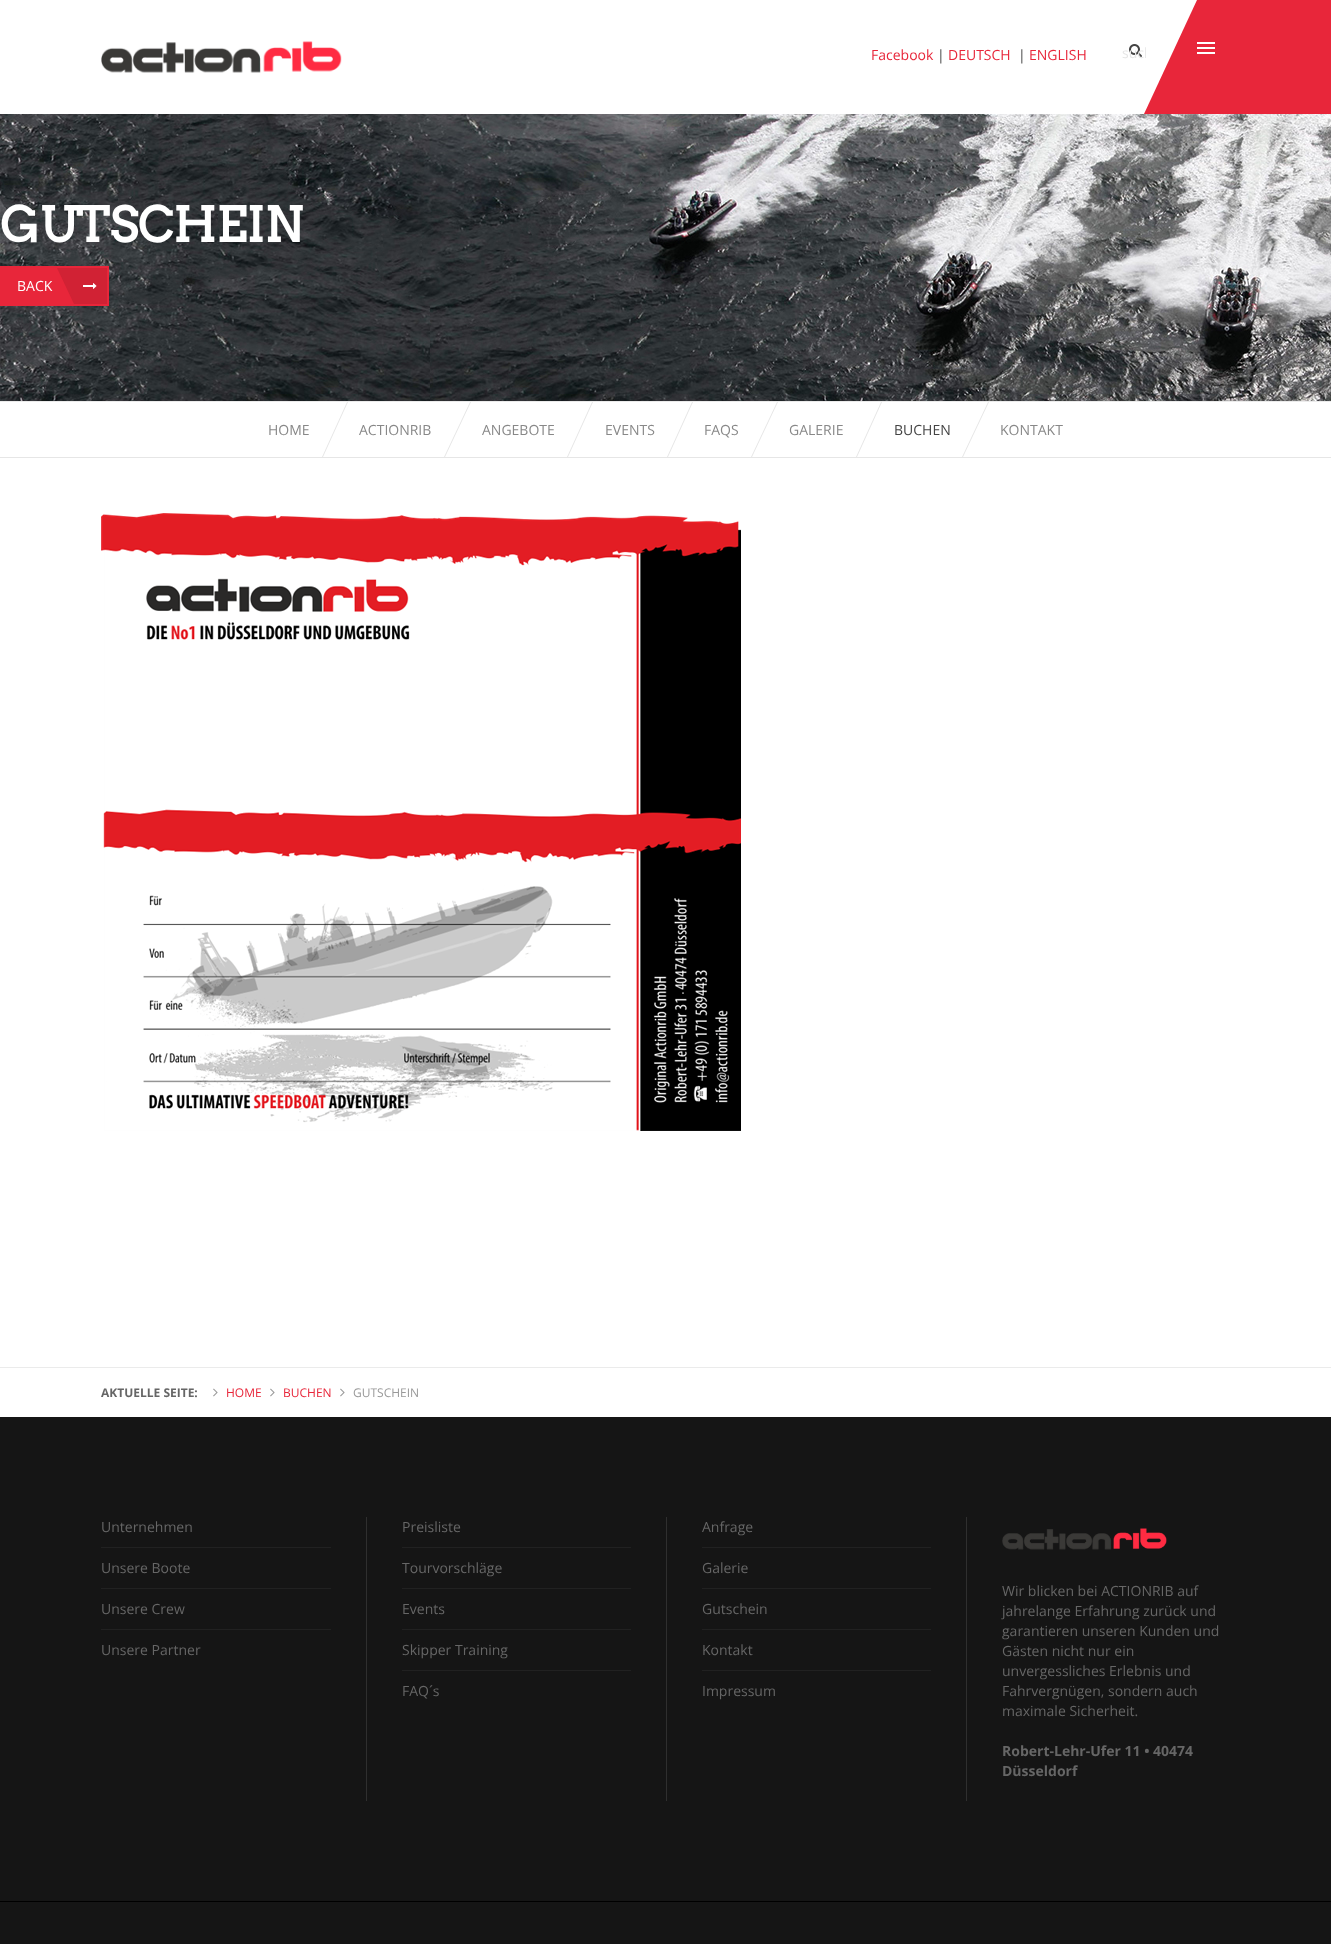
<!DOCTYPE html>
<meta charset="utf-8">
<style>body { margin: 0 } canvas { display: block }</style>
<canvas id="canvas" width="1331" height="1944"></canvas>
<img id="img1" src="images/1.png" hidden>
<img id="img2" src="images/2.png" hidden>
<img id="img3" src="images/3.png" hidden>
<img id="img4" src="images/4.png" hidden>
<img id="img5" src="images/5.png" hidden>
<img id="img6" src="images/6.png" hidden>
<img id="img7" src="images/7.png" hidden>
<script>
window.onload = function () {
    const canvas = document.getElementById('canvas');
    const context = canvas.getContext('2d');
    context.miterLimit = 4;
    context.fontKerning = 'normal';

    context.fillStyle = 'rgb(255, 255, 255)';
    context.fillRect(0, 0, 1331, 1944);
    context.drawImage(document.getElementById('img1'), 101, 41, 241, 32);
    context.drawImage(document.getElementById('img2'), 1129, 44, 13, 13);
    context.fillStyle = 'rgb(232, 38, 58)';
    context.beginPath();
    context.moveTo(1197, 0);
    context.lineTo(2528, 0);
    context.lineTo(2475, 114);
    context.lineTo(1144, 114);
    context.closePath();
    context.fill();
    context.fillStyle = 'rgb(255, 255, 255)';
    context.fillRect(1197, 47, 18, 2);
    context.fillRect(1197, 42, 18, 2);
    context.fillRect(1197, 52, 18, 2);
    context.fillStyle = 'rgb(235, 235, 235)';
    context.fillRect(0, 401, 1331, 1);
    context.drawImage(document.getElementById('img3'), 0, 114, 1331, 287);
    context.fillStyle = 'rgb(232, 38, 58)';
    context.fillRect(0, 266, 109, 40);
    context.save();
    context.beginPath();
    context.rect(2, 268, 105, 36);
    context.clip();
    context.fillStyle = 'rgb(209, 34, 52)';
    context.beginPath();
    context.moveTo(57, 268);
    context.lineTo(112, 268);
    context.lineTo(129, 304);
    context.lineTo(74, 304);
    context.closePath();
    context.fill();
    context.restore();
    context.drawImage(document.getElementById('img4'), 83, 283, 14, 6);
    context.fillStyle = 'rgb(230, 230, 230)';
    context.fillRect(0, 457, 1331, 1);
    context.beginPath();
    context.moveTo(347, 402);
    context.lineTo(348, 402);
    context.lineTo(323, 457);
    context.lineTo(322, 457);
    context.closePath();
    context.fill();
    context.beginPath();
    context.moveTo(470, 402);
    context.lineTo(471, 402);
    context.lineTo(445, 457);
    context.lineTo(444, 457);
    context.closePath();
    context.fill();
    context.beginPath();
    context.moveTo(592, 402);
    context.lineTo(593, 402);
    context.lineTo(568, 457);
    context.lineTo(567, 457);
    context.closePath();
    context.fill();
    context.beginPath();
    context.moveTo(692, 402);
    context.lineTo(693, 402);
    context.lineTo(668, 457);
    context.lineTo(667, 457);
    context.closePath();
    context.fill();
    context.beginPath();
    context.moveTo(777, 402);
    context.lineTo(778, 402);
    context.lineTo(752, 457);
    context.lineTo(751, 457);
    context.closePath();
    context.fill();
    context.beginPath();
    context.moveTo(881, 402);
    context.lineTo(882, 402);
    context.lineTo(857, 457);
    context.lineTo(856, 457);
    context.closePath();
    context.fill();
    context.beginPath();
    context.moveTo(988, 402);
    context.lineTo(989, 402);
    context.lineTo(963, 457);
    context.lineTo(962, 457);
    context.closePath();
    context.fill();
    context.drawImage(document.getElementById('img5'), 101, 513, 640, 618);
    context.fillStyle = 'rgb(235, 235, 235)';
    context.fillRect(0, 1367, 1331, 1);
    context.drawImage(document.getElementById('img6'), 213, 1388, 5, 9);
    context.drawImage(document.getElementById('img6'), 270, 1388, 5, 9);
    context.drawImage(document.getElementById('img6'), 340, 1388, 5, 9);
    context.fillStyle = 'rgb(21, 21, 21)';
    context.fillRect(0, 1417, 1331, 484);
    context.fillStyle = 'rgb(33, 33, 33)';
    context.fillRect(101, 1547, 230, 1);
    context.fillRect(101, 1588, 230, 1);
    context.fillRect(101, 1629, 230, 1);
    context.fillStyle = 'rgb(47, 47, 47)';
    context.fillRect(366, 1517, 1, 284);
    context.fillStyle = 'rgb(33, 33, 33)';
    context.fillRect(402, 1547, 229, 1);
    context.fillRect(402, 1588, 229, 1);
    context.fillRect(402, 1629, 229, 1);
    context.fillRect(402, 1670, 229, 1);
    context.fillStyle = 'rgb(47, 47, 47)';
    context.fillRect(666, 1517, 1, 284);
    context.fillStyle = 'rgb(33, 33, 33)';
    context.fillRect(702, 1547, 229, 1);
    context.fillRect(702, 1588, 229, 1);
    context.fillRect(702, 1629, 229, 1);
    context.fillRect(702, 1670, 229, 1);
    context.fillStyle = 'rgb(47, 47, 47)';
    context.fillRect(966, 1517, 1, 284);
    context.drawImage(document.getElementById('img7'), 1002, 1528, 165, 22);
    context.fillStyle = 'rgb(21, 21, 21)';
    context.fillRect(0, 1902, 1331, 42);
    context.fillStyle = 'rgb(0, 0, 0)';
    context.fillRect(0, 1901, 1331, 1);
    context.font = '14px Open Sans';
    context.fillStyle = 'rgb(232, 38, 58)';
    context.fillText('Facebook', 871, 60);
    context.fillStyle = 'rgb(68, 68, 68)';
    context.fillText('|', 937, 60);
    context.fillStyle = 'rgb(232, 38, 58)';
    context.fillText('DEUTSCH', 948, 60);
    context.fillStyle = 'rgb(68, 68, 68)';
    context.fillText('|', 1018, 60);
    context.fillStyle = 'rgb(232, 38, 58)';
    context.fillText('ENGLISH', 1029, 60);
    context.save();
    context.beginPath();
    context.rect(1122, 43, 24, 19);
    context.clip();
    context.fillStyle = 'rgb(230, 230, 230)';
    context.fillText('such', 1122, 58);
    context.restore();
    context.font = 'bold 48px Arvo';
    context.fillStyle = 'rgb(255, 255, 255)';
    context.fillText('GUTSCHEIN', 0, 242);
    context.font = '14px Open Sans';
    context.fillText('BACK', 17, 291);
    context.fillStyle = 'rgb(136, 136, 136)';
    context.fillText('HOME', 268, 435);
    context.fillText('ACTIONRIB', 359, 435);
    context.fillText('ANGEBOTE', 482, 435);
    context.fillText('EVENTS', 605, 435);
    context.fillText('FAQS', 704, 435);
    context.fillText('GALERIE', 789, 435);
    context.fillStyle = 'rgb(68, 68, 68)';
    context.fillText('BUCHEN', 894, 435);
    context.fillStyle = 'rgb(136, 136, 136)';
    context.fillText('KONTAKT', 1000, 435);
    context.font = 'bold 12px Open Sans';
    context.fillStyle = 'rgb(102, 102, 102)';
    context.fillText('AKTUELLE SEITE:', 101, 1397);
    context.font = '12px Open Sans';
    context.fillStyle = 'rgb(232, 38, 58)';
    context.fillText('HOME', 226, 1397);
    context.fillText('BUCHEN', 283, 1397);
    context.fillStyle = 'rgb(153, 153, 153)';
    context.fillText('GUTSCHEIN', 353, 1397);
    context.font = '14px Open Sans';
    context.fillStyle = 'rgb(102, 102, 102)';
    context.fillText('Unternehmen', 101, 1532);
    context.fillText('Unsere Boote', 101, 1573);
    context.fillText('Unsere Crew', 101, 1614);
    context.fillText('Unsere Partner', 101, 1655);
    context.fillText('Preisliste', 402, 1532);
    context.fillText('Tourvorschläge', 402, 1573);
    context.fillText('Events', 402, 1614);
    context.fillText('Skipper Training', 402, 1655);
    context.fillText('FAQ´s', 402, 1696);
    context.fillText('Anfrage', 702, 1532);
    context.fillText('Galerie', 702, 1573);
    context.fillText('Gutschein', 702, 1614);
    context.fillText('Kontakt', 702, 1655);
    context.fillText('Impressum', 702, 1696);
    context.fillText('Wir blicken bei ACTIONRIB auf', 1002, 1596);
    context.fillText('jahrelange Erfahrung zurück und', 1002, 1616);
    context.fillText('garantieren unseren Kunden und', 1002, 1636);
    context.fillText('Gästen nicht nur ein', 1002, 1656);
    context.fillText('unvergessliches Erlebnis und', 1002, 1676);
    context.fillText('Fahrvergnügen, sondern auch', 1002, 1696);
    context.fillText('maximale Sicherheit.', 1002, 1716);
    context.font = 'bold 14px Open Sans';
    context.fillText('Robert-Lehr-Ufer 11 • 40474', 1002, 1756);
    context.fillText('Düsseldorf', 1002, 1776);
};
</script>
